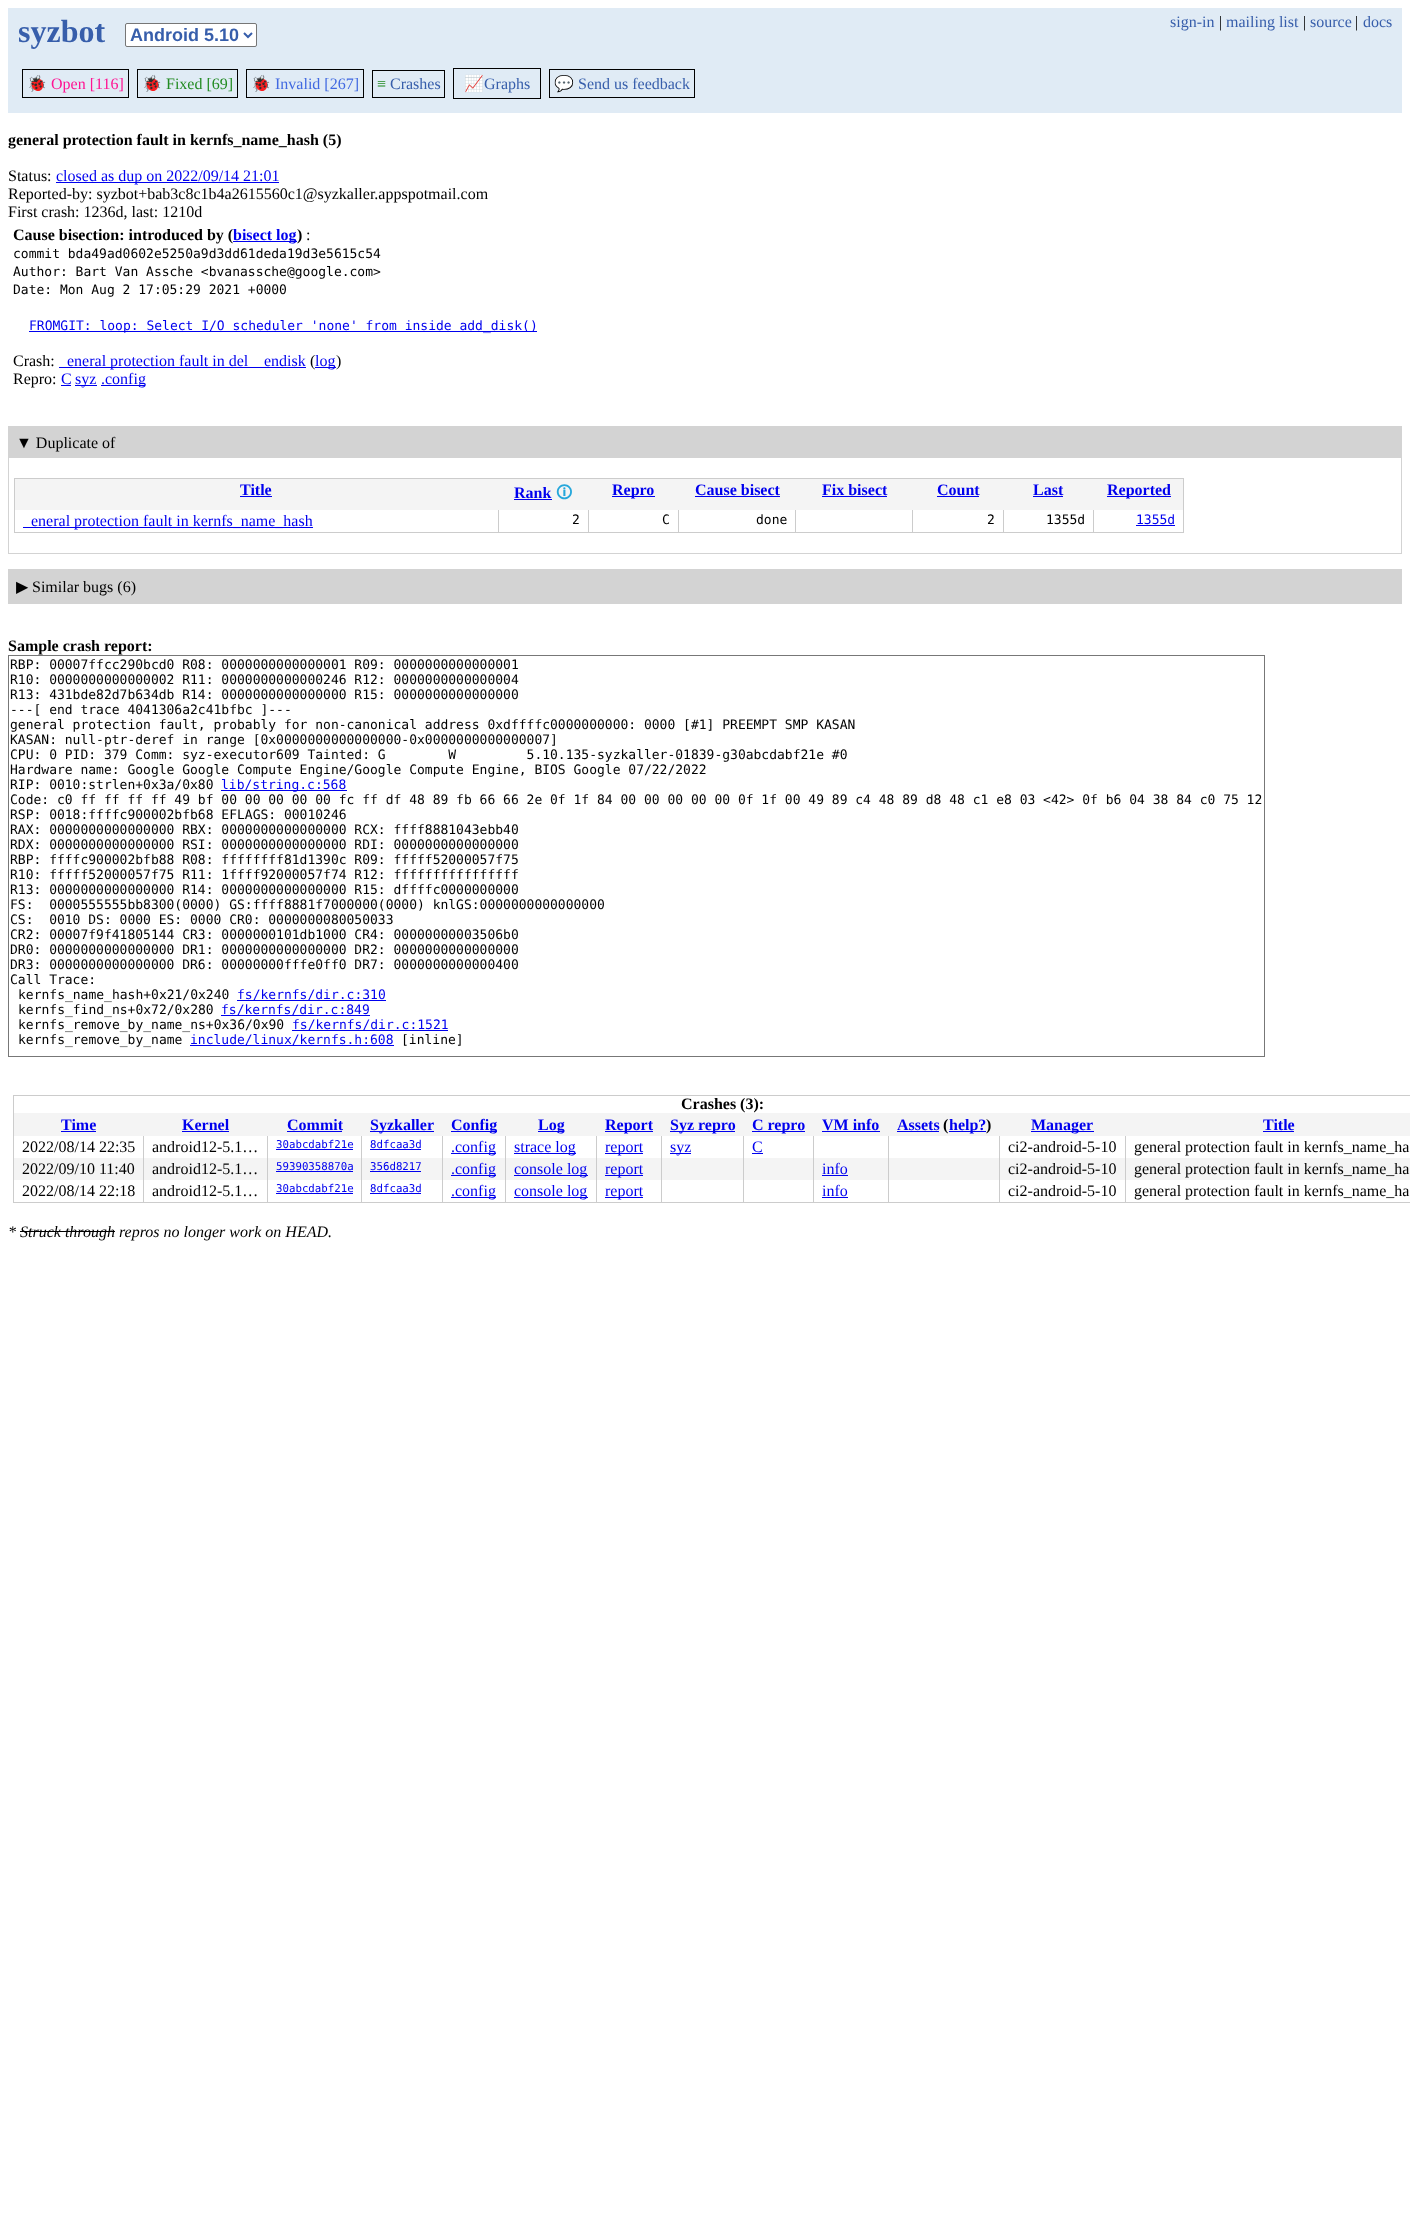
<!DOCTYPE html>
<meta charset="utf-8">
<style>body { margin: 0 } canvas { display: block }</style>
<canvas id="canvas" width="1410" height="2225"></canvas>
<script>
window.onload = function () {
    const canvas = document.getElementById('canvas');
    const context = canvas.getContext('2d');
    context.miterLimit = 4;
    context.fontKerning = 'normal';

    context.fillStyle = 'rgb(255, 255, 255)';
    context.fillRect(0, 0, 1410, 2225);
    context.fillStyle = 'rgb(224, 235, 245)';
    context.fillRect(8, 8, 1394, 105);
    context.fillStyle = 'rgb(255, 255, 255)';
    context.beginPath();
    context.roundRect(125.5, 23.5, 131, 23, 1.5);
    context.fill();
    context.strokeStyle = 'rgb(118, 118, 118)';
    context.stroke();
    context.beginPath();
    context.moveTo(244, 33);
    context.lineTo(248, 37);
    context.lineTo(252, 33);
    context.strokeStyle = 'rgb(55, 94, 171)';
    context.lineWidth = 2;
    context.stroke();
    context.strokeStyle = 'rgb(0, 0, 0)';
    context.lineWidth = 1;
    context.strokeRect(22.5, 69.5, 106, 28);
    context.strokeRect(137.5, 69.5, 100, 28);
    context.strokeRect(246.5, 69.5, 117, 28);
    context.strokeRect(372.5, 70.5, 72, 27);
    context.strokeRect(453.5, 68.5, 87, 30);
    context.strokeRect(549.5, 69.5, 145, 28);
    context.fillStyle = 'rgb(0, 0, 238)';
    context.fillRect(56, 182, 223, 1);
    context.fillRect(233, 241, 64, 1);
    context.fillRect(29, 331, 508, 1);
    context.fillRect(59, 367, 247, 1);
    context.fillRect(315, 367, 21, 1);
    context.fillRect(61, 385, 10, 1);
    context.fillRect(75, 385, 22, 1);
    context.fillRect(101, 385, 44, 1);
    context.strokeStyle = 'rgb(211, 211, 211)';
    context.strokeRect(8.5, 426.5, 1393, 127);
    context.fillStyle = 'rgb(211, 211, 211)';
    context.fillRect(9, 427, 1392, 31);
    context.fillStyle = 'rgb(204, 204, 204)';
    context.fillRect(14, 478, 1170, 1);
    context.fillRect(1183, 478, 1, 55);
    context.fillRect(14, 532, 1170, 1);
    context.fillRect(14, 478, 1, 55);
    context.fillStyle = 'rgb(244, 244, 244)';
    context.fillRect(15, 479, 1168, 31);
    context.fillStyle = 'rgb(0, 0, 238)';
    context.fillRect(240, 496, 32, 1);
    context.fillRect(514, 499, 38, 1);
    context.fillRect(612, 496, 43, 1);
    context.fillRect(695, 496, 85, 1);
    context.fillRect(822, 496, 65, 1);
    context.fillRect(937, 496, 42, 1);
    context.fillRect(1033, 496, 30, 1);
    context.fillRect(1107, 496, 64, 1);
    context.fillRect(23, 527, 290, 1);
    context.fillStyle = 'rgb(204, 204, 204)';
    context.fillRect(498, 510, 1, 22);
    context.fillRect(588, 510, 1, 22);
    context.fillRect(678, 510, 1, 22);
    context.fillRect(795, 510, 1, 22);
    context.fillRect(912, 510, 1, 22);
    context.fillRect(1003, 510, 1, 22);
    context.fillRect(1093, 510, 1, 22);
    context.fillStyle = 'rgb(0, 0, 238)';
    context.fillRect(1136, 525, 39, 1);
    context.strokeRect(8.5, 569.5, 1393, 34);
    context.fillStyle = 'rgb(211, 211, 211)';
    context.fillRect(9, 570, 1392, 33);
    context.strokeStyle = 'rgb(119, 119, 119)';
    context.strokeRect(8.5, 655.5, 1256, 401);
    context.fillStyle = 'rgb(0, 0, 238)';
    context.fillRect(221, 790, 126, 1);
    context.fillRect(237, 1000, 149, 1);
    context.fillRect(221, 1015, 149, 1);
    context.fillRect(292, 1030, 156, 1);
    context.fillRect(190, 1045, 204, 1);
    context.fillStyle = 'rgb(204, 204, 204)';
    context.fillRect(13, 1095, 1397, 1);
    context.fillRect(13, 1202, 1397, 1);
    context.fillRect(13, 1095, 1, 108);
    context.fillStyle = 'rgb(244, 244, 244)';
    context.fillRect(14, 1158, 1396, 22);
    context.fillStyle = 'rgb(204, 204, 204)';
    context.fillRect(143, 1135, 1, 67);
    context.fillRect(267, 1135, 1, 67);
    context.fillRect(361, 1135, 1, 67);
    context.fillRect(442, 1135, 1, 67);
    context.fillRect(505, 1135, 1, 67);
    context.fillRect(596, 1135, 1, 67);
    context.fillRect(661, 1135, 1, 67);
    context.fillRect(743, 1135, 1, 67);
    context.fillRect(813, 1135, 1, 67);
    context.fillRect(888, 1135, 1, 67);
    context.fillRect(999, 1135, 1, 67);
    context.fillRect(1125, 1135, 1, 67);
    context.fillStyle = 'rgb(244, 244, 244)';
    context.fillRect(14, 1113, 1396, 23);
    context.fillStyle = 'rgb(0, 0, 238)';
    context.fillRect(61, 1131, 35, 1);
    context.fillRect(182, 1131, 47, 1);
    context.fillRect(287, 1131, 55, 1);
    context.fillRect(370, 1131, 64, 1);
    context.fillRect(451, 1131, 46, 1);
    context.fillRect(538, 1131, 26, 1);
    context.fillRect(605, 1131, 48, 1);
    context.fillRect(670, 1131, 65, 1);
    context.fillRect(752, 1131, 53, 1);
    context.fillRect(822, 1131, 58, 1);
    context.fillRect(897, 1131, 42, 1);
    context.fillRect(949, 1131, 37, 1);
    context.fillRect(1031, 1131, 63, 1);
    context.fillRect(1263, 1131, 31, 1);
    context.fillRect(276, 1149, 77, 1);
    context.fillRect(370, 1149, 51, 1);
    context.fillRect(451, 1153, 45, 1);
    context.fillRect(514, 1153, 62, 1);
    context.fillRect(605, 1153, 38, 1);
    context.fillRect(670, 1153, 21, 1);
    context.fillRect(752, 1153, 11, 1);
    context.fillRect(276, 1171, 77, 1);
    context.fillRect(370, 1171, 51, 1);
    context.fillRect(451, 1175, 45, 1);
    context.fillRect(514, 1175, 74, 1);
    context.fillRect(605, 1175, 38, 1);
    context.fillRect(822, 1175, 26, 1);
    context.fillRect(276, 1193, 77, 1);
    context.fillRect(370, 1193, 51, 1);
    context.fillRect(451, 1197, 45, 1);
    context.fillRect(514, 1197, 74, 1);
    context.fillRect(605, 1197, 38, 1);
    context.fillRect(822, 1197, 26, 1);
    context.fillStyle = 'rgb(0, 0, 0)';
    context.fillRect(20, 1231, 95, 1);
    context.font = 'bold 32px Liberation Serif';
    context.fillStyle = 'rgb(55, 94, 171)';
    context.fillText('syzbot', 18, 42);
    context.font = 'bold 18px Liberation Sans';
    context.fillText('Android 5.10', 130, 41);
    context.font = '16px Liberation Serif';
    context.fillText('sign-in', 1170, 27);
    context.fillStyle = 'rgb(0, 0, 0)';
    context.fillText('|', 1219, 27);
    context.fillStyle = 'rgb(55, 94, 171)';
    context.fillText('mailing list', 1226, 27);
    context.fillStyle = 'rgb(0, 0, 0)';
    context.fillText('|', 1303, 27);
    context.fillStyle = 'rgb(55, 94, 171)';
    context.fillText('source', 1310, 27);
    context.fillStyle = 'rgb(0, 0, 0)';
    context.fillText('|', 1355, 27);
    context.fillStyle = 'rgb(55, 94, 171)';
    context.fillText('docs', 1363, 27);
    context.font = '16px Noto Color Emoji';
    context.fillStyle = 'rgb(255, 20, 147)';
    context.fillText('🐞', 27, 89);
    context.font = '16px Liberation Serif';
    context.fillText('Open [116]', 51, 89);
    context.font = '16px Noto Color Emoji';
    context.fillStyle = 'rgb(34, 139, 34)';
    context.fillText('🐞', 142, 89);
    context.font = '16px Liberation Serif';
    context.fillText('Fixed [69]', 166, 89);
    context.font = '16px Noto Color Emoji';
    context.fillStyle = 'rgb(65, 105, 225)';
    context.fillText('🐞', 251, 89);
    context.font = '16px Liberation Serif';
    context.fillText('Invalid [267]', 275, 89);
    context.fillStyle = 'rgb(34, 139, 34)';
    context.fillText('≡', 377, 89);
    context.fillStyle = 'rgb(55, 94, 171)';
    context.fillText('Crashes', 390, 89);
    context.font = '16px Noto Color Emoji';
    context.fillStyle = 'rgb(255, 140, 0)';
    context.fillText('📈', 464, 89);
    context.font = '16px Liberation Serif';
    context.fillStyle = 'rgb(55, 94, 171)';
    context.fillText('Graphs', 484, 89);
    context.font = '16px Noto Color Emoji';
    context.fillStyle = 'rgb(34, 139, 34)';
    context.fillText('💬', 554, 89);
    context.font = '16px Liberation Serif';
    context.fillStyle = 'rgb(55, 94, 171)';
    context.fillText('Send us feedback', 578, 89);
    context.font = 'bold 16px Liberation Serif';
    context.fillStyle = 'rgb(0, 0, 0)';
    context.fillText('general protection fault in kernfs_name_hash (5)', 8, 145);
    context.font = '16px Liberation Serif';
    context.fillText('Status:', 8, 181);
    context.fillStyle = 'rgb(0, 0, 238)';
    context.fillText('closed as dup on 2022/09/14 21:01', 56, 181);
    context.fillStyle = 'rgb(0, 0, 0)';
    context.fillText('Reported-by: syzbot+bab3c8c1b4a2615560c1@syzkaller.appspotmail.com', 8, 199);
    context.fillText('First crash: 1236d, last: 1210d', 8, 217);
    context.font = 'bold 16px Liberation Serif';
    context.fillText('Cause bisection: introduced by (', 13, 240);
    context.fillStyle = 'rgb(0, 0, 238)';
    context.fillText('bisect log', 233, 240);
    context.fillStyle = 'rgb(0, 0, 0)';
    context.fillText(')', 297, 240);
    context.font = '16px Liberation Serif';
    context.fillText(':', 306, 240);
    context.font = '13px DejaVu Sans Mono';
    context.fillText('commit bda49ad0602e5250a9d3dd61deda19d3e5615c54', 13, 258);
    context.fillText('Author: Bart Van Assche <bvanassche@google.com>', 13, 276);
    context.fillText('Date: Mon Aug 2 17:05:29 2021 +0000', 13, 294);
    context.fillStyle = 'rgb(0, 0, 238)';
    context.fillText('FROMGIT: loop: Select I/O scheduler \'none\' from inside add_disk()', 29, 330);
    context.font = '16px Liberation Serif';
    context.fillStyle = 'rgb(0, 0, 0)';
    context.fillText('Crash:', 13, 366);
    context.fillStyle = 'rgb(0, 0, 238)';
    context.fillText('eneral protection fault in del', 67, 366);
    context.fillText('endisk', 264, 366);
    context.fillStyle = 'rgb(0, 0, 0)';
    context.fillText('(', 310, 366);
    context.fillStyle = 'rgb(0, 0, 238)';
    context.fillText('log', 315, 366);
    context.fillStyle = 'rgb(0, 0, 0)';
    context.fillText(')', 336, 366);
    context.fillText('Repro:', 13, 384);
    context.fillStyle = 'rgb(0, 0, 238)';
    context.fillText('C', 61, 384);
    context.fillText('syz', 75, 384);
    context.fillText('.config', 101, 384);
    context.fillStyle = 'rgb(0, 0, 0)';
    context.fillText('▼ Duplicate of', 16, 448);
    context.font = 'bold 16px Liberation Serif';
    context.fillStyle = 'rgb(0, 0, 238)';
    context.fillText('Title', 240, 495);
    context.fillText('Rank', 514, 498);
    context.font = 'bold 16px "Noto Sans Symbols 2"';
    context.fillStyle = 'rgb(37, 167, 219)';
    context.fillText('🛈', 556, 498);
    context.font = 'bold 16px Liberation Serif';
    context.fillStyle = 'rgb(0, 0, 238)';
    context.fillText('Repro', 612, 495);
    context.fillText('Cause bisect', 695, 495);
    context.fillText('Fix bisect', 822, 495);
    context.fillText('Count', 937, 495);
    context.fillText('Last', 1033, 495);
    context.fillText('Reported', 1107, 495);
    context.font = '16px Liberation Serif';
    context.fillText('eneral protection fault in kernfs_name_hash', 31, 526);
    context.font = '13px DejaVu Sans Mono';
    context.fillStyle = 'rgb(0, 0, 0)';
    context.fillText('2', 572, 524);
    context.fillText('C', 662, 524);
    context.fillText('done', 756, 524);
    context.fillText('2', 987, 524);
    context.fillText('1355d', 1046, 524);
    context.fillStyle = 'rgb(0, 0, 238)';
    context.fillText('1355d', 1136, 524);
    context.font = '16px DejaVu Sans';
    context.fillStyle = 'rgb(0, 0, 0)';
    context.fillText('▶', 16, 592);
    context.font = '16px Liberation Serif';
    context.fillText('Similar bugs (6)', 32, 592);
    context.font = 'bold 16px Liberation Serif';
    context.fillText('Sample crash report:', 8, 651);
    context.font = '13px DejaVu Sans Mono';
    context.fillText('RBP: 00007ffcc290bcd0 R08: 0000000000000001 R09: 0000000000000001', 10, 669);
    context.fillText('R10: 0000000000000002 R11: 0000000000000246 R12: 0000000000000004', 10, 684);
    context.fillText('R13: 431bde82d7b634db R14: 0000000000000000 R15: 0000000000000000', 10, 699);
    context.fillText('---[ end trace 4041306a2c41bfbc ]---', 10, 714);
    context.fillText('general protection fault, probably for non-canonical address 0xdffffc0000000000: 0000 [#1] PREEMPT SMP KASAN', 10, 729);
    context.fillText('KASAN: null-ptr-deref in range [0x0000000000000000-0x0000000000000007]', 10, 744);
    context.fillText('CPU: 0 PID: 379 Comm: syz-executor609 Tainted: G        W         5.10.135-syzkaller-01839-g30abcdabf21e #0', 10, 759);
    context.fillText('Hardware name: Google Google Compute Engine/Google Compute Engine, BIOS Google 07/22/2022', 10, 774);
    context.fillText('RIP: 0010:strlen+0x3a/0x80', 10, 789);
    context.fillStyle = 'rgb(0, 0, 238)';
    context.fillText('lib/string.c:568', 221, 789);
    context.fillStyle = 'rgb(0, 0, 0)';
    context.fillText('Code: c0 ff ff ff ff 49 bf 00 00 00 00 00 fc ff df 48 89 fb 66 66 2e 0f 1f 84 00 00 00 00 00 0f 1f 00 49 89 c4 48 89 d8 48 c1 e8 03 <42> 0f b6 04 38 84 c0 75 12', 10, 804);
    context.fillText('RSP: 0018:ffffc900002bfb68 EFLAGS: 00010246', 10, 819);
    context.fillText('RAX: 0000000000000000 RBX: 0000000000000000 RCX: ffff8881043ebb40', 10, 834);
    context.fillText('RDX: 0000000000000000 RSI: 0000000000000000 RDI: 0000000000000000', 10, 849);
    context.fillText('RBP: ffffc900002bfb88 R08: ffffffff81d1390c R09: fffff52000057f75', 10, 864);
    context.fillText('R10: fffff52000057f75 R11: 1ffff92000057f74 R12: ffffffffffffffff', 10, 879);
    context.fillText('R13: 0000000000000000 R14: 0000000000000000 R15: dffffc0000000000', 10, 894);
    context.fillText('FS:  0000555555bb8300(0000) GS:ffff8881f7000000(0000) knlGS:0000000000000000', 10, 909);
    context.fillText('CS:  0010 DS: 0000 ES: 0000 CR0: 0000000080050033', 10, 924);
    context.fillText('CR2: 00007f9f41805144 CR3: 0000000101db1000 CR4: 00000000003506b0', 10, 939);
    context.fillText('DR0: 0000000000000000 DR1: 0000000000000000 DR2: 0000000000000000', 10, 954);
    context.fillText('DR3: 0000000000000000 DR6: 00000000fffe0ff0 DR7: 0000000000000400', 10, 969);
    context.fillText('Call Trace:', 10, 984);
    context.fillText('kernfs_name_hash+0x21/0x240', 18, 999);
    context.fillStyle = 'rgb(0, 0, 238)';
    context.fillText('fs/kernfs/dir.c:310', 237, 999);
    context.fillStyle = 'rgb(0, 0, 0)';
    context.fillText('kernfs_find_ns+0x72/0x280', 18, 1014);
    context.fillStyle = 'rgb(0, 0, 238)';
    context.fillText('fs/kernfs/dir.c:849', 221, 1014);
    context.fillStyle = 'rgb(0, 0, 0)';
    context.fillText('kernfs_remove_by_name_ns+0x36/0x90', 18, 1029);
    context.fillStyle = 'rgb(0, 0, 238)';
    context.fillText('fs/kernfs/dir.c:1521', 292, 1029);
    context.fillStyle = 'rgb(0, 0, 0)';
    context.fillText('kernfs_remove_by_name', 18, 1044);
    context.fillStyle = 'rgb(0, 0, 238)';
    context.fillText('include/linux/kernfs.h:608', 190, 1044);
    context.fillStyle = 'rgb(0, 0, 0)';
    context.fillText('[inline]', 401, 1044);
    context.font = 'bold 16px Liberation Serif';
    context.fillText('Crashes (3):', 681, 1109);
    context.fillStyle = 'rgb(0, 0, 238)';
    context.fillText('Time', 61, 1130);
    context.fillText('Kernel', 182, 1130);
    context.fillText('Commit', 287, 1130);
    context.fillText('Syzkaller', 370, 1130);
    context.fillText('Config', 451, 1130);
    context.fillText('Log', 538, 1130);
    context.fillText('Report', 605, 1130);
    context.fillText('Syz repro', 670, 1130);
    context.fillText('C repro', 752, 1130);
    context.fillText('VM info', 822, 1130);
    context.fillText('Assets', 897, 1130);
    context.fillStyle = 'rgb(0, 0, 0)';
    context.fillText('(', 943, 1130);
    context.fillStyle = 'rgb(0, 0, 238)';
    context.fillText('help?', 949, 1130);
    context.fillStyle = 'rgb(0, 0, 0)';
    context.fillText(')', 986, 1130);
    context.fillStyle = 'rgb(0, 0, 238)';
    context.fillText('Manager', 1031, 1130);
    context.fillText('Title', 1263, 1130);
    context.font = '16px Liberation Serif';
    context.fillStyle = 'rgb(0, 0, 0)';
    context.fillText('2022/08/14 22:35', 22, 1152);
    context.fillText('android12-5.1…', 152, 1152);
    context.font = '10.75px DejaVu Sans Mono';
    context.fillStyle = 'rgb(0, 0, 238)';
    context.fillText('30abcdabf21e', 276, 1148);
    context.fillText('8dfcaa3d', 370, 1148);
    context.font = '16px Liberation Serif';
    context.fillText('.config', 451, 1152);
    context.fillText('strace log', 514, 1152);
    context.fillText('report', 605, 1152);
    context.fillText('syz', 670, 1152);
    context.fillText('C', 752, 1152);
    context.fillStyle = 'rgb(0, 0, 0)';
    context.fillText('ci2-android-5-10', 1008, 1152);
    context.fillText('general protection fault in kernfs_name_ha', 1134, 1152);
    context.fillText('2022/09/10 11:40', 22, 1174);
    context.fillText('android12-5.1…', 152, 1174);
    context.font = '10.75px DejaVu Sans Mono';
    context.fillStyle = 'rgb(0, 0, 238)';
    context.fillText('59390358870a', 276, 1170);
    context.fillText('356d8217', 370, 1170);
    context.font = '16px Liberation Serif';
    context.fillText('.config', 451, 1174);
    context.fillText('console log', 514, 1174);
    context.fillText('report', 605, 1174);
    context.fillText('info', 822, 1174);
    context.fillStyle = 'rgb(0, 0, 0)';
    context.fillText('ci2-android-5-10', 1008, 1174);
    context.fillText('general protection fault in kernfs_name_ha', 1134, 1174);
    context.fillText('2022/08/14 22:18', 22, 1196);
    context.fillText('android12-5.1…', 152, 1196);
    context.font = '10.75px DejaVu Sans Mono';
    context.fillStyle = 'rgb(0, 0, 238)';
    context.fillText('30abcdabf21e', 276, 1192);
    context.fillText('8dfcaa3d', 370, 1192);
    context.font = '16px Liberation Serif';
    context.fillText('.config', 451, 1196);
    context.fillText('console log', 514, 1196);
    context.fillText('report', 605, 1196);
    context.fillText('info', 822, 1196);
    context.fillStyle = 'rgb(0, 0, 0)';
    context.fillText('ci2-android-5-10', 1008, 1196);
    context.fillText('general protection fault in kernfs_name_ha', 1134, 1196);
    context.font = 'italic 16px Liberation Serif';
    context.fillText('* Struck through repros no longer work on HEAD.', 8, 1237);
};
</script>
